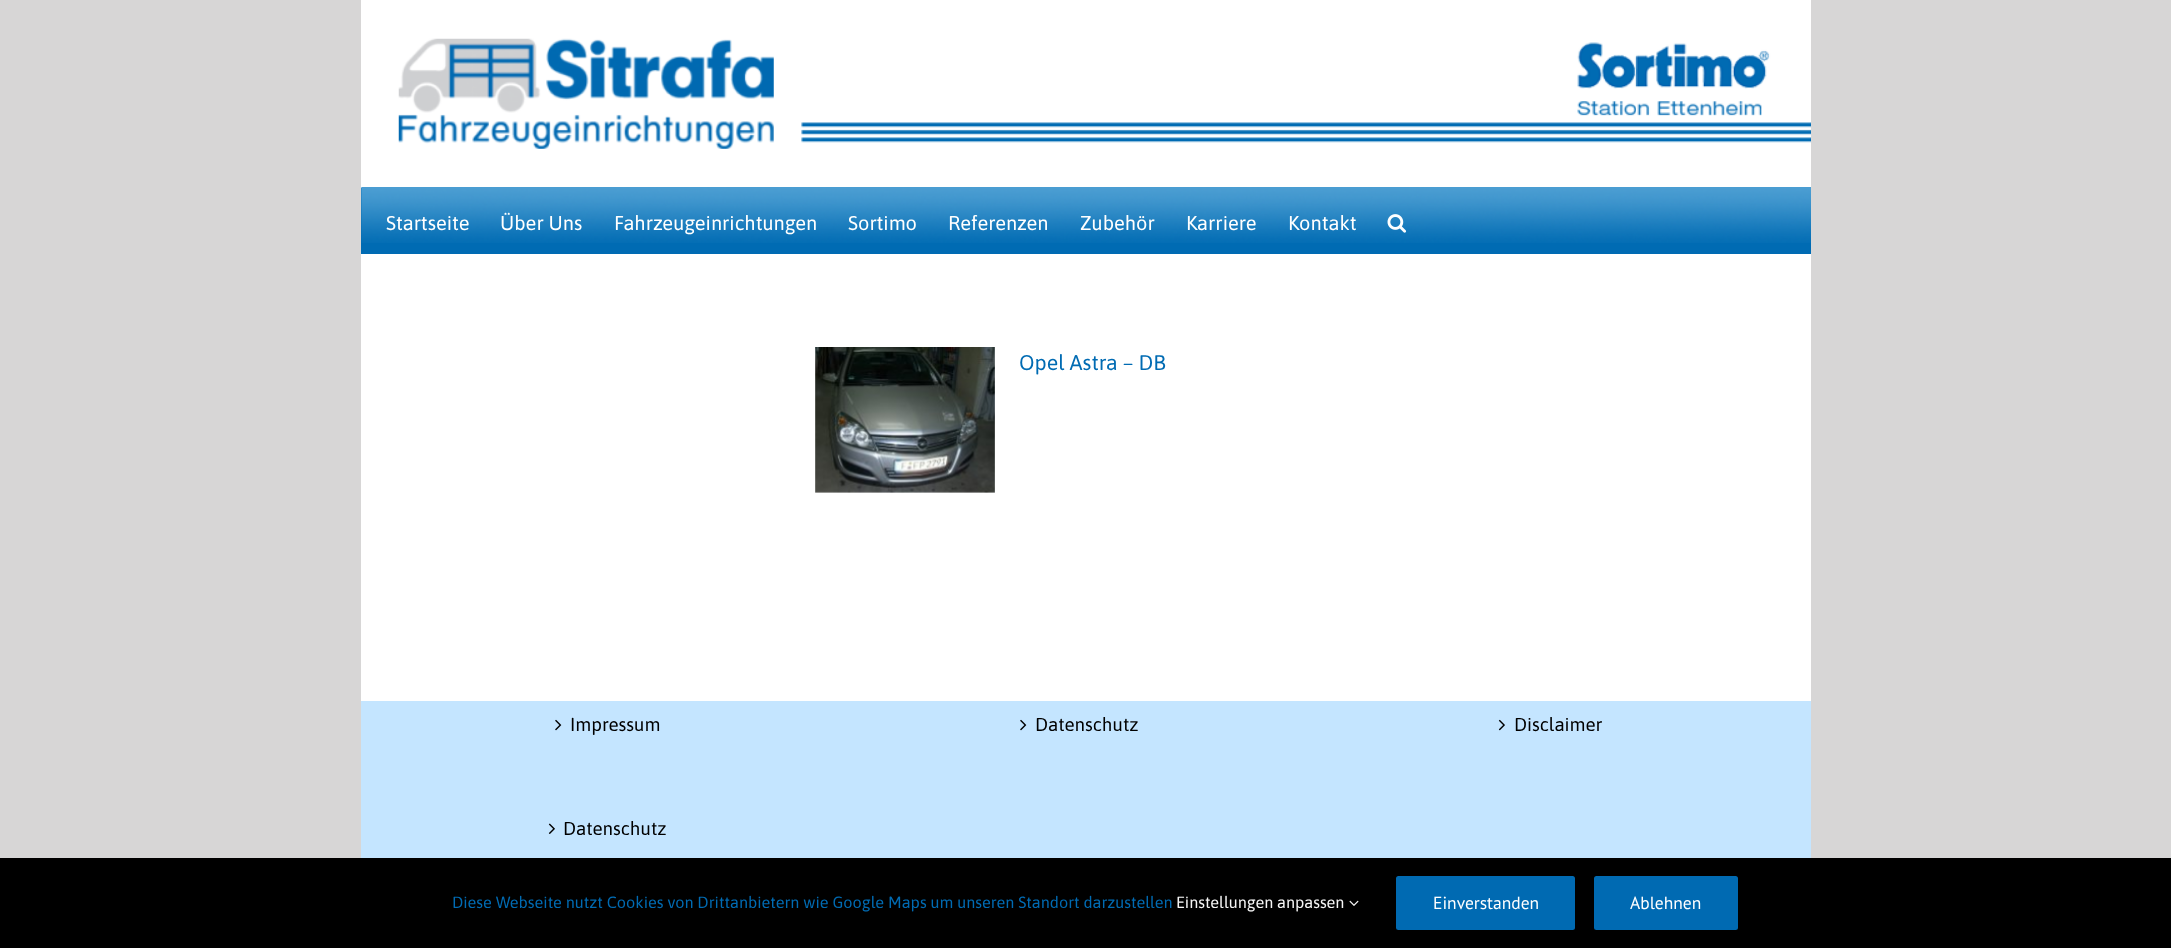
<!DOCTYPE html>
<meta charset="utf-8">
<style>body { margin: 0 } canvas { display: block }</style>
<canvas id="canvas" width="2171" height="948"></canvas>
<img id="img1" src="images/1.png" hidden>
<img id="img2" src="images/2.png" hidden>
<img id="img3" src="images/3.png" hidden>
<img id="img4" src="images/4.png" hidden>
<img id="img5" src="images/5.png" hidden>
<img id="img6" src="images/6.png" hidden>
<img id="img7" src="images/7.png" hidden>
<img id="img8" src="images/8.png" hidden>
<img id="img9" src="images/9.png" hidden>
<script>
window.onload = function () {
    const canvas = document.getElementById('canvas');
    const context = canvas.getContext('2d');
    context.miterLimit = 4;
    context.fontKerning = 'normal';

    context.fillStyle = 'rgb(215, 214, 214)';
    context.fillRect(0, 0, 2171, 948);
    context.fillStyle = 'rgb(255, 255, 255)';
    context.fillRect(361, 0, 1450, 188);
    context.drawImage(document.getElementById('img1'), 801, 42, 1010, 101);
    context.drawImage(document.getElementById('img2'), 398, 38, 376, 111);
    context.fillStyle = 'rgb(0, 107, 179)';
    context.fillRect(361, 188, 1450, 66);
    context.drawImage(document.getElementById('img3'), 361, 187, 1450, 56);
    context.drawImage(document.getElementById('img4'), 1387, 214, 20, 19);
    context.fillStyle = 'rgb(255, 255, 255)';
    context.fillRect(361, 254, 1450, 447);
    context.drawImage(document.getElementById('img5'), 815, 347, 180, 146);
    context.fillStyle = 'rgb(196, 229, 255)';
    context.fillRect(361, 701, 1450, 157);
    context.drawImage(document.getElementById('img6'), 555, 719, 7, 12);
    context.drawImage(document.getElementById('img7'), 548, 823, 7, 11);
    context.drawImage(document.getElementById('img6'), 1020, 719, 7, 12);
    context.drawImage(document.getElementById('img8'), 1498, 719, 7, 12);
    context.fillStyle = 'rgb(0, 0, 0)';
    context.fillRect(0, 858, 2171, 90);
    context.drawImage(document.getElementById('img9'), 1349, 900, 10, 6);
    context.fillStyle = 'rgb(0, 106, 178)';
    context.beginPath();
    context.roundRect(1396, 876, 179, 54, 2.5);
    context.fill();
    context.beginPath();
    context.roundRect(1594, 876, 144, 54, 2.5);
    context.fill();
    context.font = '20px Asap';
    context.fillStyle = 'rgb(255, 255, 255)';
    context.fillText('Startseite', 386, 230);
    context.fillText('Über Uns', 500, 230);
    context.fillText('Fahrzeugeinrichtungen', 614, 230);
    context.fillText('Sortimo', 848, 230);
    context.fillText('Referenzen', 948, 230);
    context.fillText('Zubehör', 1080, 230);
    context.fillText('Karriere', 1186, 230);
    context.fillText('Kontakt', 1288, 230);
    context.font = '21.25px Asap';
    context.fillStyle = 'rgb(0, 107, 179)';
    context.fillText('Opel Astra – DB', 1019, 370);
    context.font = '18.75px Asap';
    context.fillStyle = 'rgb(0, 0, 0)';
    context.fillText('Impressum', 570, 731);
    context.fillText('Datenschutz', 563, 835);
    context.fillText('Datenschutz', 1035, 731);
    context.fillText('Disclaimer', 1514, 731);
    context.font = '16.25px Asap';
    context.fillStyle = 'rgb(0, 107, 179)';
    context.fillText('Diese Webseite nutzt Cookies von Drittanbietern wie Google Maps um unseren Standort darzustellen', 452, 908);
    context.fillStyle = 'rgb(246, 246, 246)';
    context.fillText('Einstellungen anpassen', 1176, 908);
    context.font = '17.5px PT Sans';
    context.fillStyle = 'rgb(255, 255, 255)';
    context.fillText('Einverstanden', 1433, 909);
    context.fillText('Ablehnen', 1630, 909);
};
</script>
